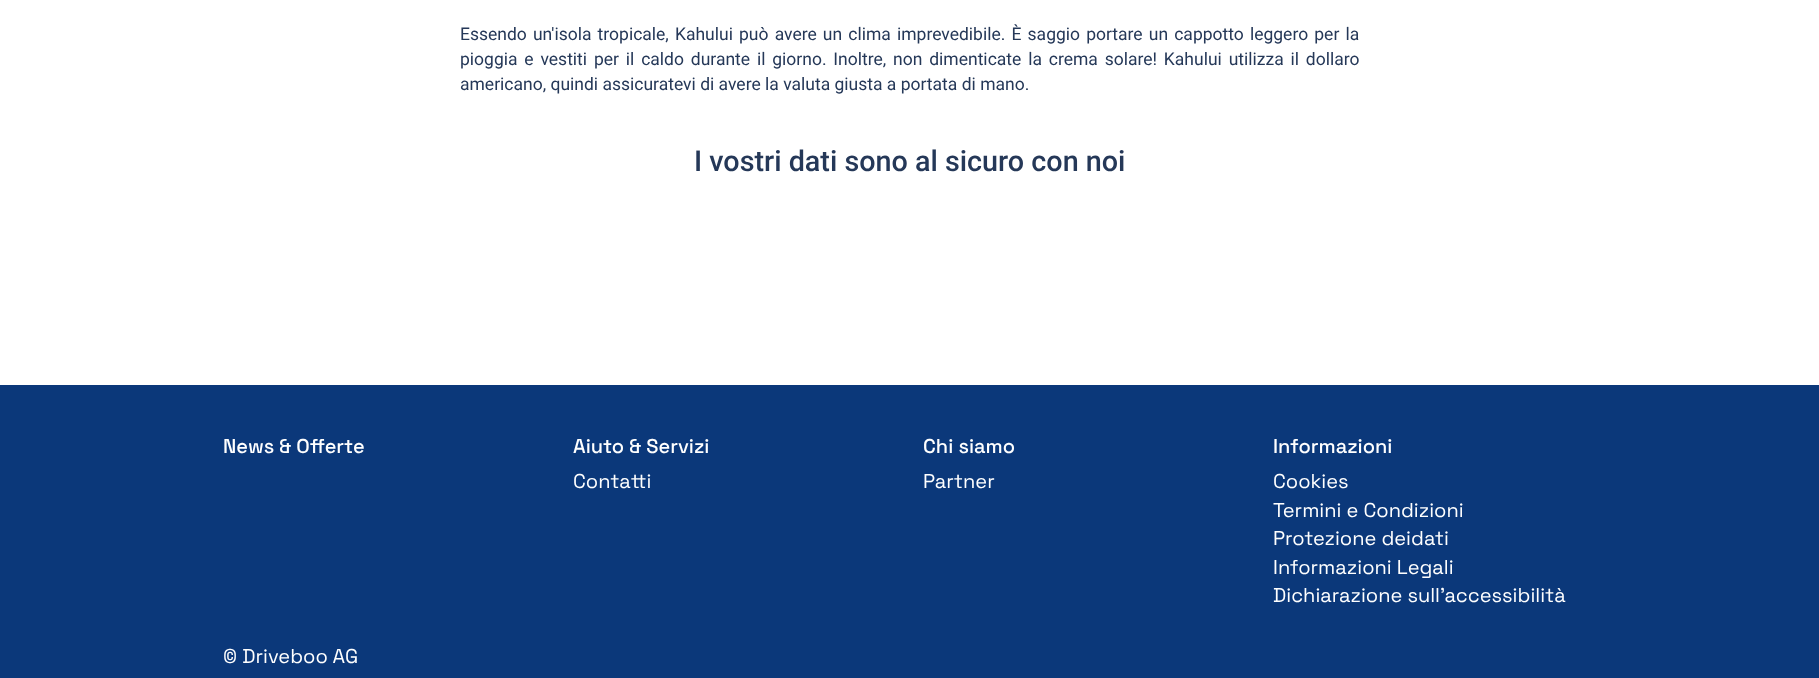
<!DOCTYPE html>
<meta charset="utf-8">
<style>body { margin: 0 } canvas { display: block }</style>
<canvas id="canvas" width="1819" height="678"></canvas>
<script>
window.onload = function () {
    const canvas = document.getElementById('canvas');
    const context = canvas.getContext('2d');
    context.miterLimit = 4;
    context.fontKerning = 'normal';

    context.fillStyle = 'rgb(255, 255, 255)';
    context.fillRect(0, 0, 1819, 678);
    context.fillStyle = 'rgb(11, 56, 122)';
    context.fillRect(0, 385, 1819, 293);
    context.wordSpacing = '1.8px';
    context.font = '17.5px Roboto';
    context.fillStyle = 'rgb(37, 56, 88)';
    context.fillText('Essendo un\'isola tropicale, Kahului può avere un clima imprevedibile. È saggio portare un cappotto leggero per la', 460, 40);
    context.wordSpacing = '2.5px';
    context.fillText('pioggia e vestiti per il caldo durante il giorno. Inoltre, non dimenticate la crema solare! Kahului utilizza il dollaro', 460, 65);
    context.wordSpacing = '0px';
    context.fillText('americano, quindi assicuratevi di avere la valuta giusta a portata di mano.', 460, 90);
    context.font = '500 28.75px Roboto';
    context.fillText('I vostri dati sono al sicuro con noi', 694, 171);
    context.font = '500 20px Space Grotesk';
    context.fillStyle = 'rgb(255, 255, 255)';
    context.fillText('News & Offerte', 223, 453);
    context.fillText('Aiuto & Servizi', 573, 453);
    context.font = '20px Space Grotesk';
    context.fillText('Contatti', 573, 488);
    context.font = '500 20px Space Grotesk';
    context.fillText('Chi siamo', 923, 453);
    context.font = '20px Space Grotesk';
    context.fillText('Partner', 923, 488);
    context.font = '500 20px Space Grotesk';
    context.fillText('Informazioni', 1273, 453);
    context.font = '20px Space Grotesk';
    context.fillText('Cookies', 1273, 488);
    context.fillText('Termini e Condizioni', 1273, 517);
    context.fillText('Protezione deidati', 1273, 545);
    context.fillText('Informazioni Legali', 1273, 574);
    context.fillText('Dichiarazione sull\'accessibilità', 1273, 602);
    context.fillText('© Driveboo AG', 223, 663);
};
</script>
